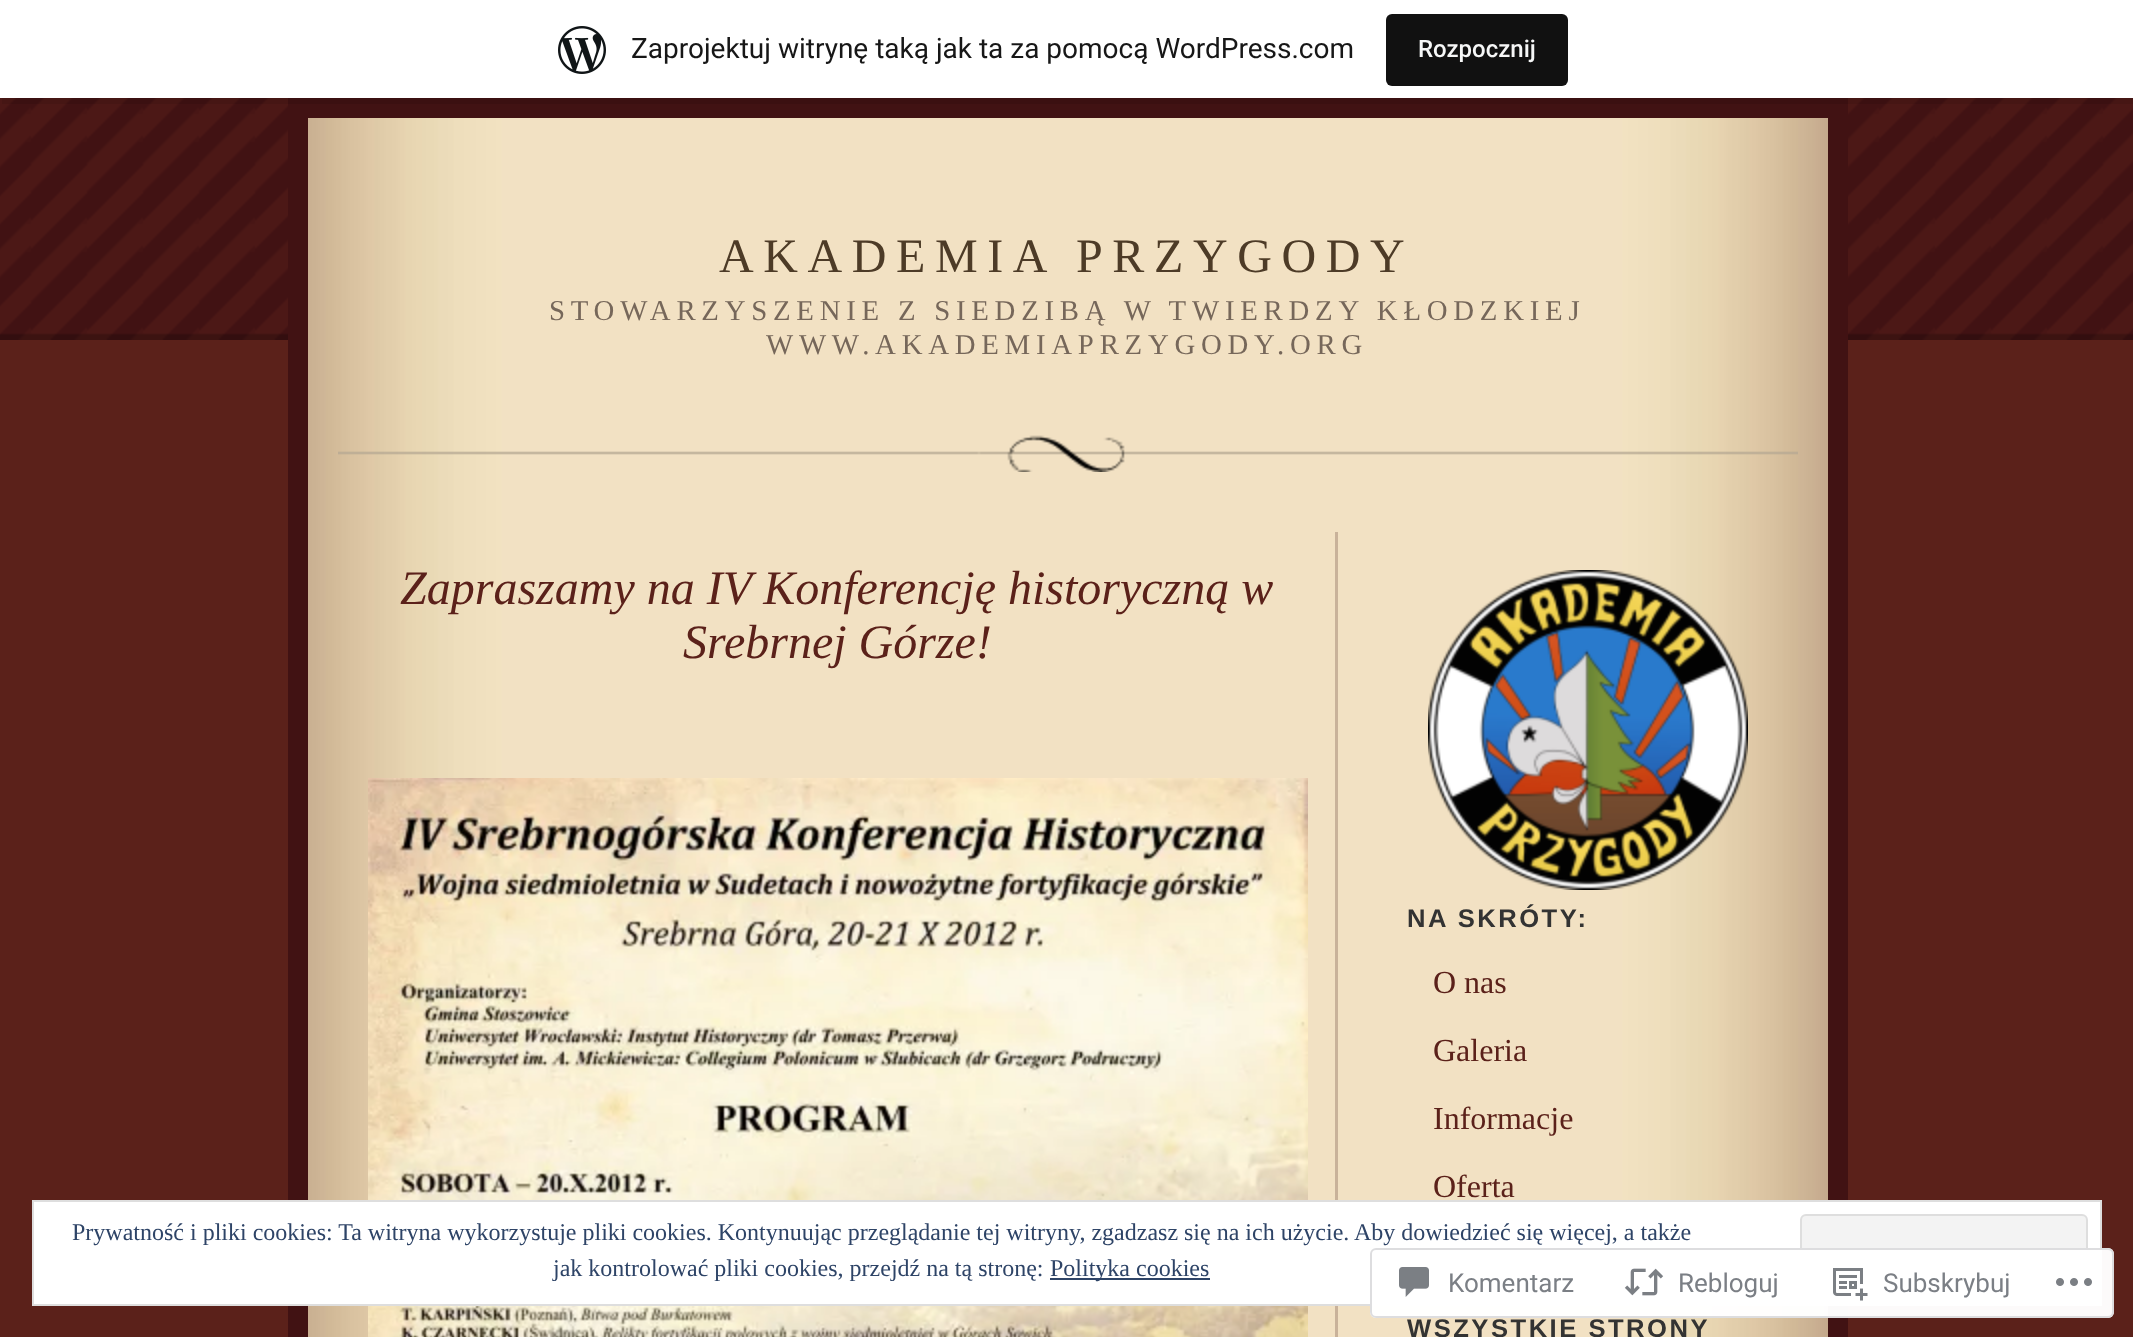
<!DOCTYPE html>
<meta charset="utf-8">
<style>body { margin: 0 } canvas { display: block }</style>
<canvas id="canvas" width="2133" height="1337"></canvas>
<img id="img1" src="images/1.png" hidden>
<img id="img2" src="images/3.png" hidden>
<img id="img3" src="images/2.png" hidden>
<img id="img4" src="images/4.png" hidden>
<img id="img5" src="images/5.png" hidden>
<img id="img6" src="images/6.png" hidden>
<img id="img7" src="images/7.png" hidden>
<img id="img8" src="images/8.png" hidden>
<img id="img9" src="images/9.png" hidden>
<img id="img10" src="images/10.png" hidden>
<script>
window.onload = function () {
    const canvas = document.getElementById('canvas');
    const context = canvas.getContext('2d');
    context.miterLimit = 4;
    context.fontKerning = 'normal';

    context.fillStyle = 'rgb(91, 33, 26)';
    context.fillRect(0, 0, 2133, 1337);
    context.drawImage(document.getElementById('img1'), 0, 98, 2133, 242);
    context.drawImage(document.getElementById('img2'), 308, 118, 1520, 1219);
    context.strokeStyle = 'rgb(65, 18, 19)';
    context.lineWidth = 20;
    context.strokeRect(298, 108, 1540, 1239);
    context.fillStyle = 'rgba(0, 0, 0, 0.08)';
    context.beginPath();
    context.moveTo(2, 98);
    context.lineTo(2, 104);
    context.lineTo(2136, 104);
    context.lineTo(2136, 6);
    context.lineTo(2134, 6);
    context.lineTo(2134, 98);
    context.closePath();
    context.fill();
    context.fillStyle = 'rgb(255, 255, 255)';
    context.fillRect(0, 0, 2133, 98);
    context.drawImage(document.getElementById('img3'), 558, 26, 48, 48);
    context.fillStyle = 'rgb(17, 17, 17)';
    context.beginPath();
    context.roundRect(1386, 14, 182, 72, 6);
    context.fill();
    context.drawImage(document.getElementById('img4'), 338, 435, 1460, 37);
    context.fillStyle = 'rgb(201, 178, 154)';
    context.fillRect(1335, 532, 3, 805);
    context.drawImage(document.getElementById('img5'), 368, 778, 940, 559);
    context.drawImage(document.getElementById('img6'), 1428, 570, 320, 320);
    context.fillStyle = 'rgb(255, 255, 255)';
    context.beginPath();
    context.rect(33, 1201, 2068, 104);
    context.fill();
    context.strokeStyle = 'rgb(222, 222, 222)';
    context.lineWidth = 2;
    context.stroke();
    context.fillStyle = 'rgb(243, 243, 243)';
    context.beginPath();
    context.roundRect(1801, 1215, 286, 76, 5);
    context.fill();
    context.stroke();
    context.fillStyle = 'rgb(46, 68, 103)';
    context.fillRect(1050, 1278, 160, 2);
    context.fillStyle = 'rgba(255, 255, 255, 0.98)';
    context.beginPath();
    context.roundRect(1370, 1248, 744, 70, 6);
    context.fill();
    context.beginPath();
    context.roundRect(1371, 1249, 742, 68, 5);
    context.strokeStyle = 'rgba(220, 220, 222, 0.98)';
    context.stroke();
    context.drawImage(document.getElementById('img7'), 1399, 1267, 30, 30);
    context.drawImage(document.getElementById('img8'), 1624, 1268, 40, 28);
    context.drawImage(document.getElementById('img9'), 1833, 1268, 35, 33);
    context.drawImage(document.getElementById('img10'), 2056, 1278, 36, 8);
    context.font = '28px Roboto';
    context.fillStyle = 'rgb(23, 23, 23)';
    context.fillText('Zaprojektuj witrynę taką jak ta za pomocą WordPress.com', 631, 58);
    context.font = '500 24px Roboto';
    context.fillStyle = 'rgb(246, 247, 247)';
    context.fillText('Rozpocznij', 1418, 57);
    context.letterSpacing = '9.6px';
    context.font = '48px Liberation Serif';
    context.fillStyle = 'rgb(77, 59, 39)';
    context.fillText('AKADEMIA PRZYGODY', 719, 272);
    context.letterSpacing = '5.75px';
    context.font = '28.8px Liberation Serif';
    context.fillStyle = 'rgb(118, 103, 90)';
    context.fillText('STOWARZYSZENIE Z SIEDZIBĄ W TWIERDZY KŁODZKIEJ', 549, 320);
    context.fillText('WWW.AKADEMIAPRZYGODY.ORG', 766, 354);
    context.letterSpacing = '0px';
    context.font = 'italic 48px Liberation Serif';
    context.fillStyle = 'rgb(91, 33, 26)';
    context.fillText('Zapraszamy na IV Konferencję historyczną w', 400, 604);
    context.fillText('Srebrnej Górze!', 683, 658);
    context.letterSpacing = '2.5px';
    context.font = 'bold 25.6px Liberation Sans';
    context.fillStyle = 'rgb(51, 51, 51)';
    context.fillText('NA SKRÓTY:', 1407, 927);
    context.letterSpacing = '0px';
    context.font = '32px Liberation Serif';
    context.fillStyle = 'rgb(91, 33, 26)';
    context.fillText('O nas', 1433, 993);
    context.fillText('Galeria', 1433, 1061);
    context.fillText('Informacje', 1433, 1129);
    context.fillText('Oferta', 1433, 1197);
    context.letterSpacing = '2.5px';
    context.font = 'bold 25.6px Liberation Sans';
    context.fillStyle = 'rgb(51, 51, 51)';
    context.fillText('WSZYSTKIE STRONY', 1407, 1337);
    context.letterSpacing = '0px';
    context.font = '24px Liberation Serif';
    context.fillStyle = 'rgb(46, 68, 103)';
    context.fillText('Prywatność i pliki cookies: Ta witryna wykorzystuje pliki cookies. Kontynuując przeglądanie tej witryny, zgadzasz się na ich użycie. Aby dowiedzieć się więcej, a także', 72, 1240);
    context.fillText('jak kontrolować pliki cookies, przejdź na tą stronę:', 553, 1276);
    context.fillText('Polityka cookies', 1050, 1276);
    context.font = '26px Roboto';
    context.fillStyle = 'rgb(123, 127, 133)';
    context.fillText('Komentarz', 1448, 1292);
    context.fillText('Rebloguj', 1678, 1292);
    context.fillText('Subskrybuj', 1883, 1292);
};
</script>
